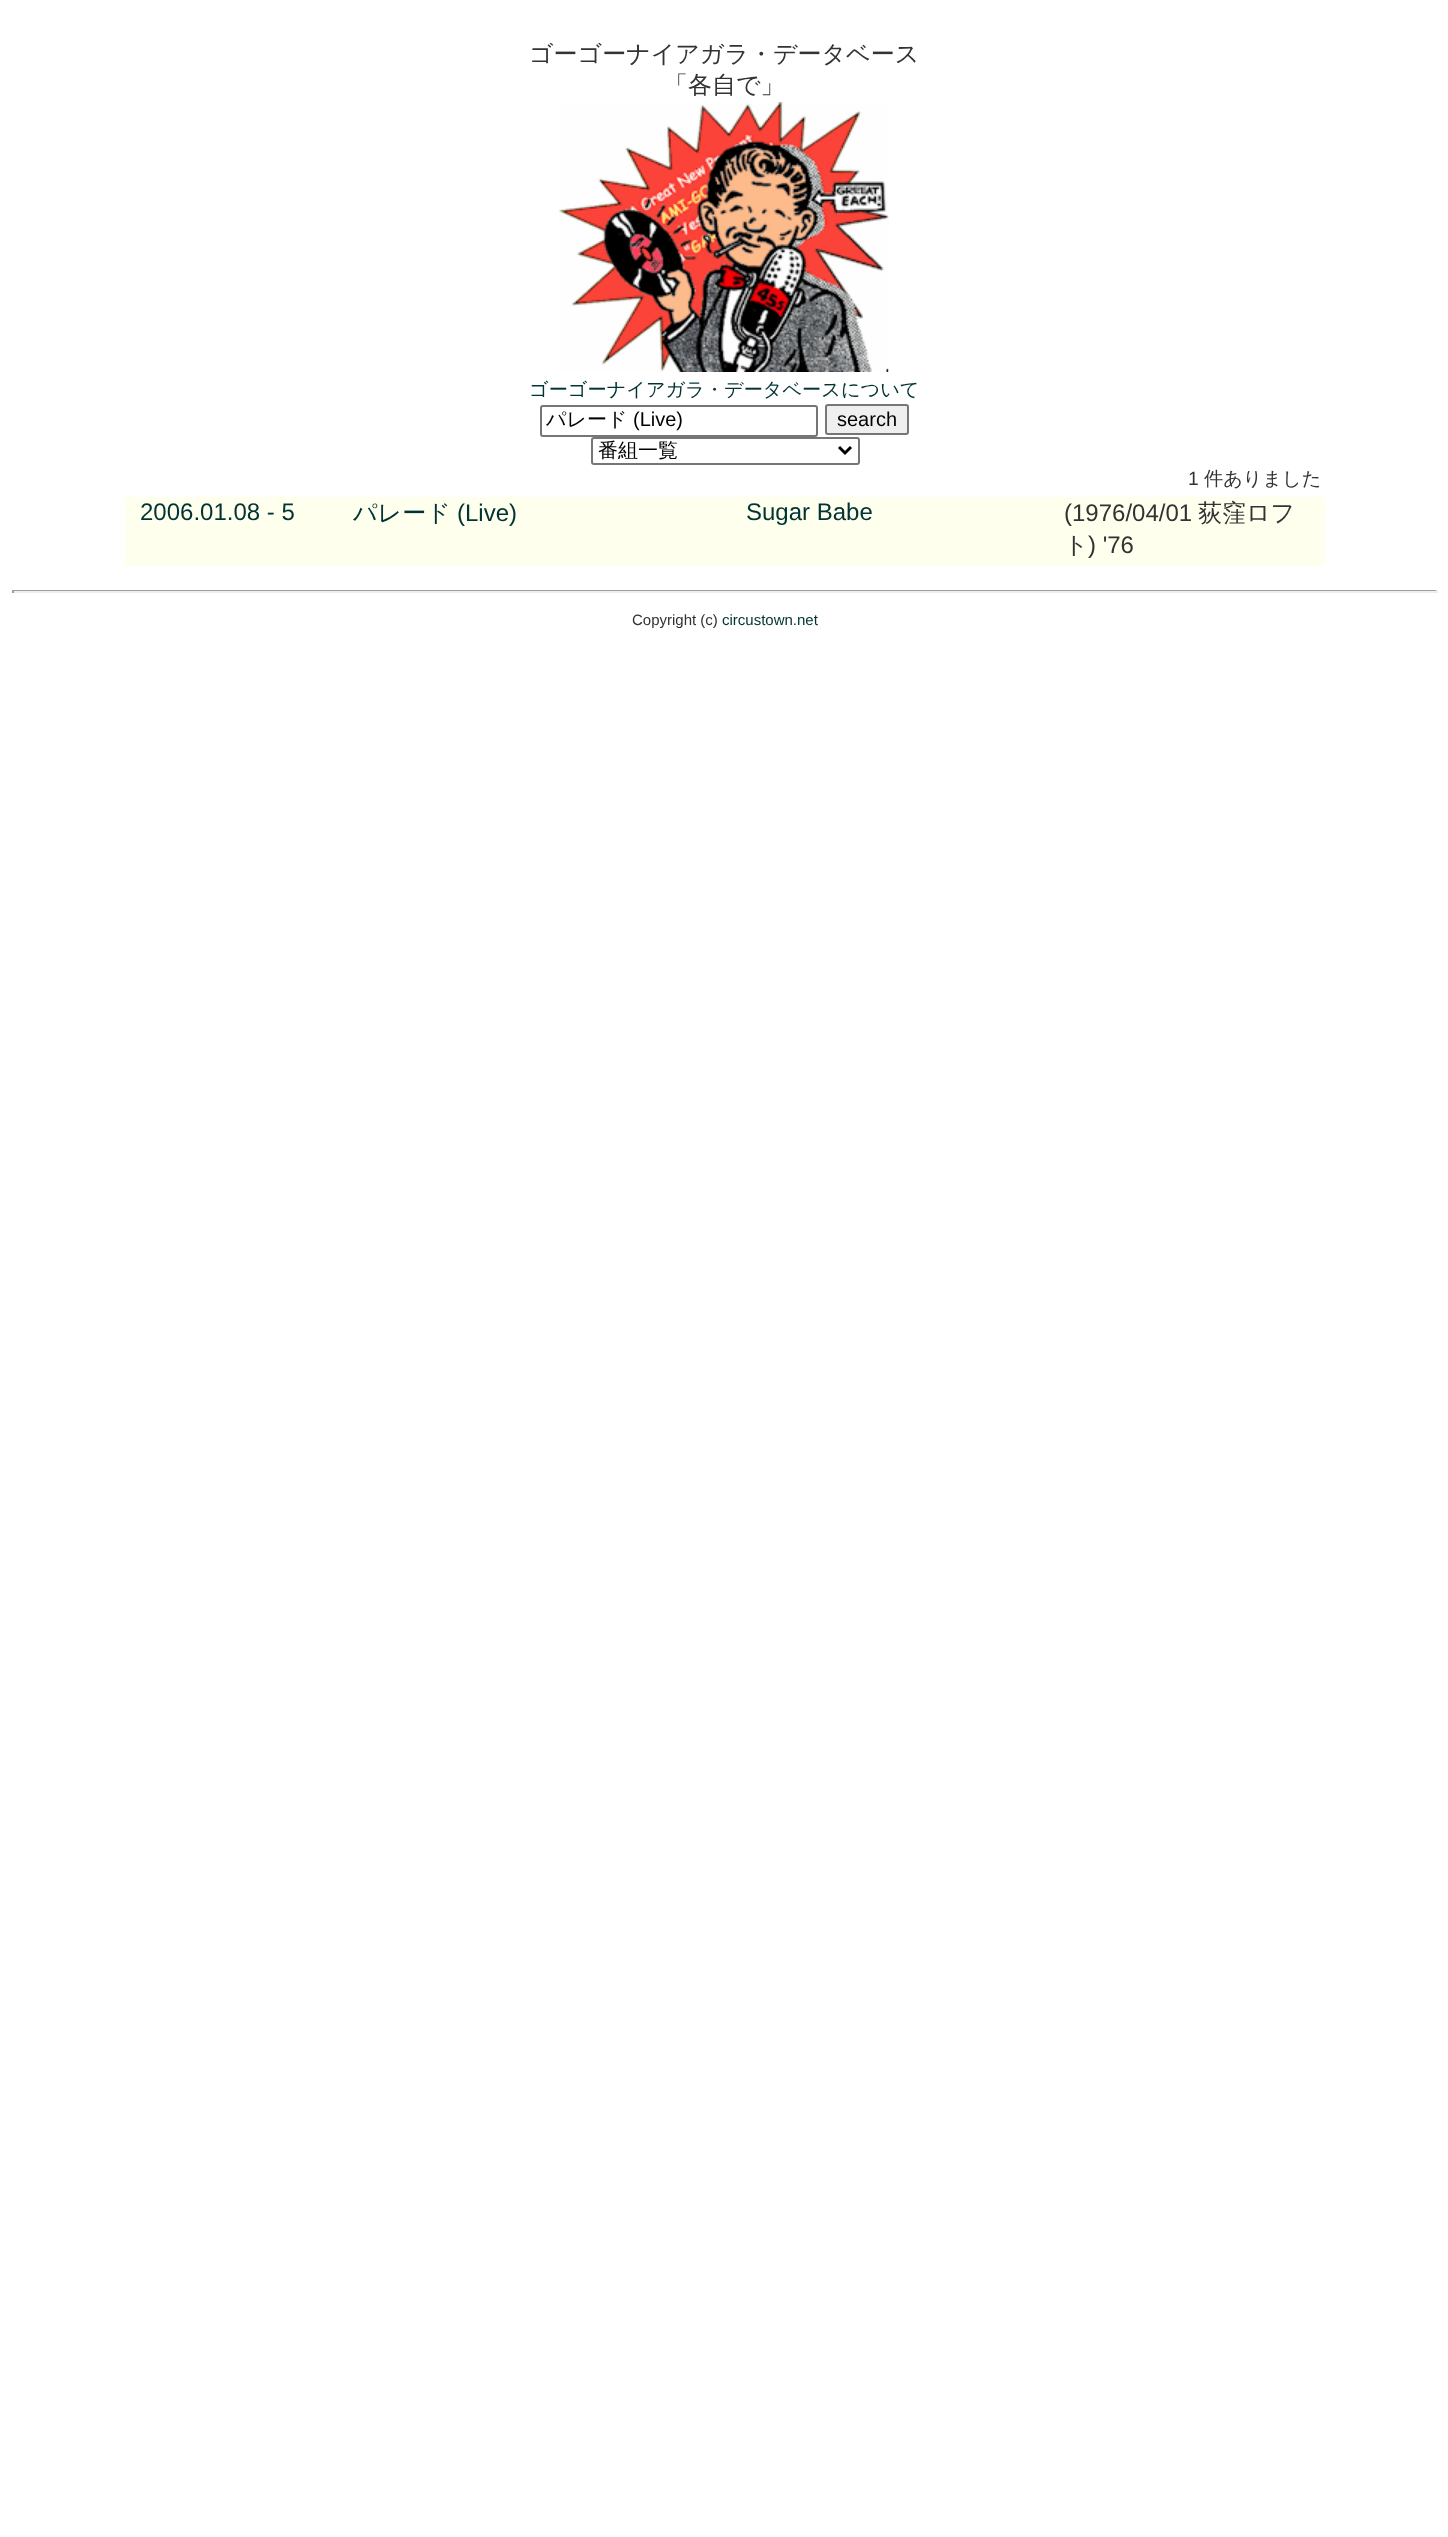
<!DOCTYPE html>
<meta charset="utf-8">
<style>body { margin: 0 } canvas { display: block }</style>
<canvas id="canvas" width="1448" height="2537"></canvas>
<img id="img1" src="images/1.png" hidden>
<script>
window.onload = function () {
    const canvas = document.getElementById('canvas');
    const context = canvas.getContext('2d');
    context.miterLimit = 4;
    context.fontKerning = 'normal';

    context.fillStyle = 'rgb(255, 255, 255)';
    context.fillRect(0, 0, 1448, 2537);
    context.drawImage(document.getElementById('img1'), 559, 102, 330, 270);
    context.beginPath();
    context.roundRect(541, 406, 276, 30, 2);
    context.strokeStyle = 'rgb(118, 118, 118)';
    context.lineWidth = 2;
    context.stroke();
    context.fillStyle = 'rgb(239, 239, 239)';
    context.beginPath();
    context.roundRect(826, 405, 82, 29, 2);
    context.fill();
    context.stroke();
    context.beginPath();
    context.roundRect(592, 438, 267, 26, 2);
    context.stroke();
    context.beginPath();
    context.moveTo(839, 447);
    context.lineTo(845, 453);
    context.lineTo(851, 447);
    context.strokeStyle = 'rgb(0, 0, 0)';
    context.lineWidth = 3;
    context.stroke();
    context.fillStyle = 'rgb(255, 255, 238)';
    context.fillRect(125, 497, 1200, 69);
    context.fillStyle = 'rgb(159, 159, 159)';
    context.fillRect(12, 590, 1425, 1);
    context.fillStyle = 'rgb(238, 238, 238)';
    context.fillRect(1436, 590, 2, 3);
    context.fillRect(12, 591, 1425, 2);
    context.fillStyle = 'rgb(159, 159, 159)';
    context.fillRect(12, 590, 2, 3);
    context.font = '500 24px WenQuanYi Zen Hei';
    context.fillStyle = 'rgb(51, 51, 51)';
    context.fillText('ゴーゴーナイアガラ・データベース', 529, 62);
    context.fillText('「各自で」', 664, 93);
    context.font = '500 19.2px WenQuanYi Zen Hei';
    context.fillStyle = 'rgb(0, 51, 51)';
    context.fillText('ゴーゴーナイアガラ・データベースについて', 529, 396);
    context.font = '500 20px WenQuanYi Zen Hei';
    context.fillStyle = 'rgb(0, 0, 0)';
    context.fillText('パレード', 546, 426);
    context.font = '20px Liberation Sans';
    context.fillText('(Live)', 633, 426);
    context.fillText('search', 837, 426);
    context.font = '500 20px WenQuanYi Zen Hei';
    context.fillText('番組一覧', 598, 457);
    context.font = '19.2px Liberation Sans';
    context.fillStyle = 'rgb(51, 51, 51)';
    context.fillText('1', 1188, 485);
    context.font = '500 19.2px WenQuanYi Zen Hei';
    context.fillText('件ありました', 1204, 485);
    context.font = '24px Liberation Sans';
    context.fillStyle = 'rgb(0, 51, 51)';
    context.fillText('2006.01.08 - 5', 140, 520);
    context.font = '500 24px WenQuanYi Zen Hei';
    context.fillText('パレード', 353, 521);
    context.font = '24px Liberation Sans';
    context.fillText('(Live)', 457, 521);
    context.fillText('Sugar Babe', 746, 520);
    context.fillStyle = 'rgb(51, 51, 51)';
    context.fillText('(1976/04/01', 1064, 521);
    context.font = '500 24px WenQuanYi Zen Hei';
    context.fillText('荻窪ロフ', 1198, 521);
    context.fillText('ト', 1064, 553);
    context.font = '24px Liberation Sans';
    context.fillText(') \'76', 1088, 553);
    context.font = '15px Liberation Sans';
    context.fillText('Copyright (c)', 632, 625);
    context.fillStyle = 'rgb(0, 51, 51)';
    context.fillText('circustown.net', 722, 625);
};
</script>
